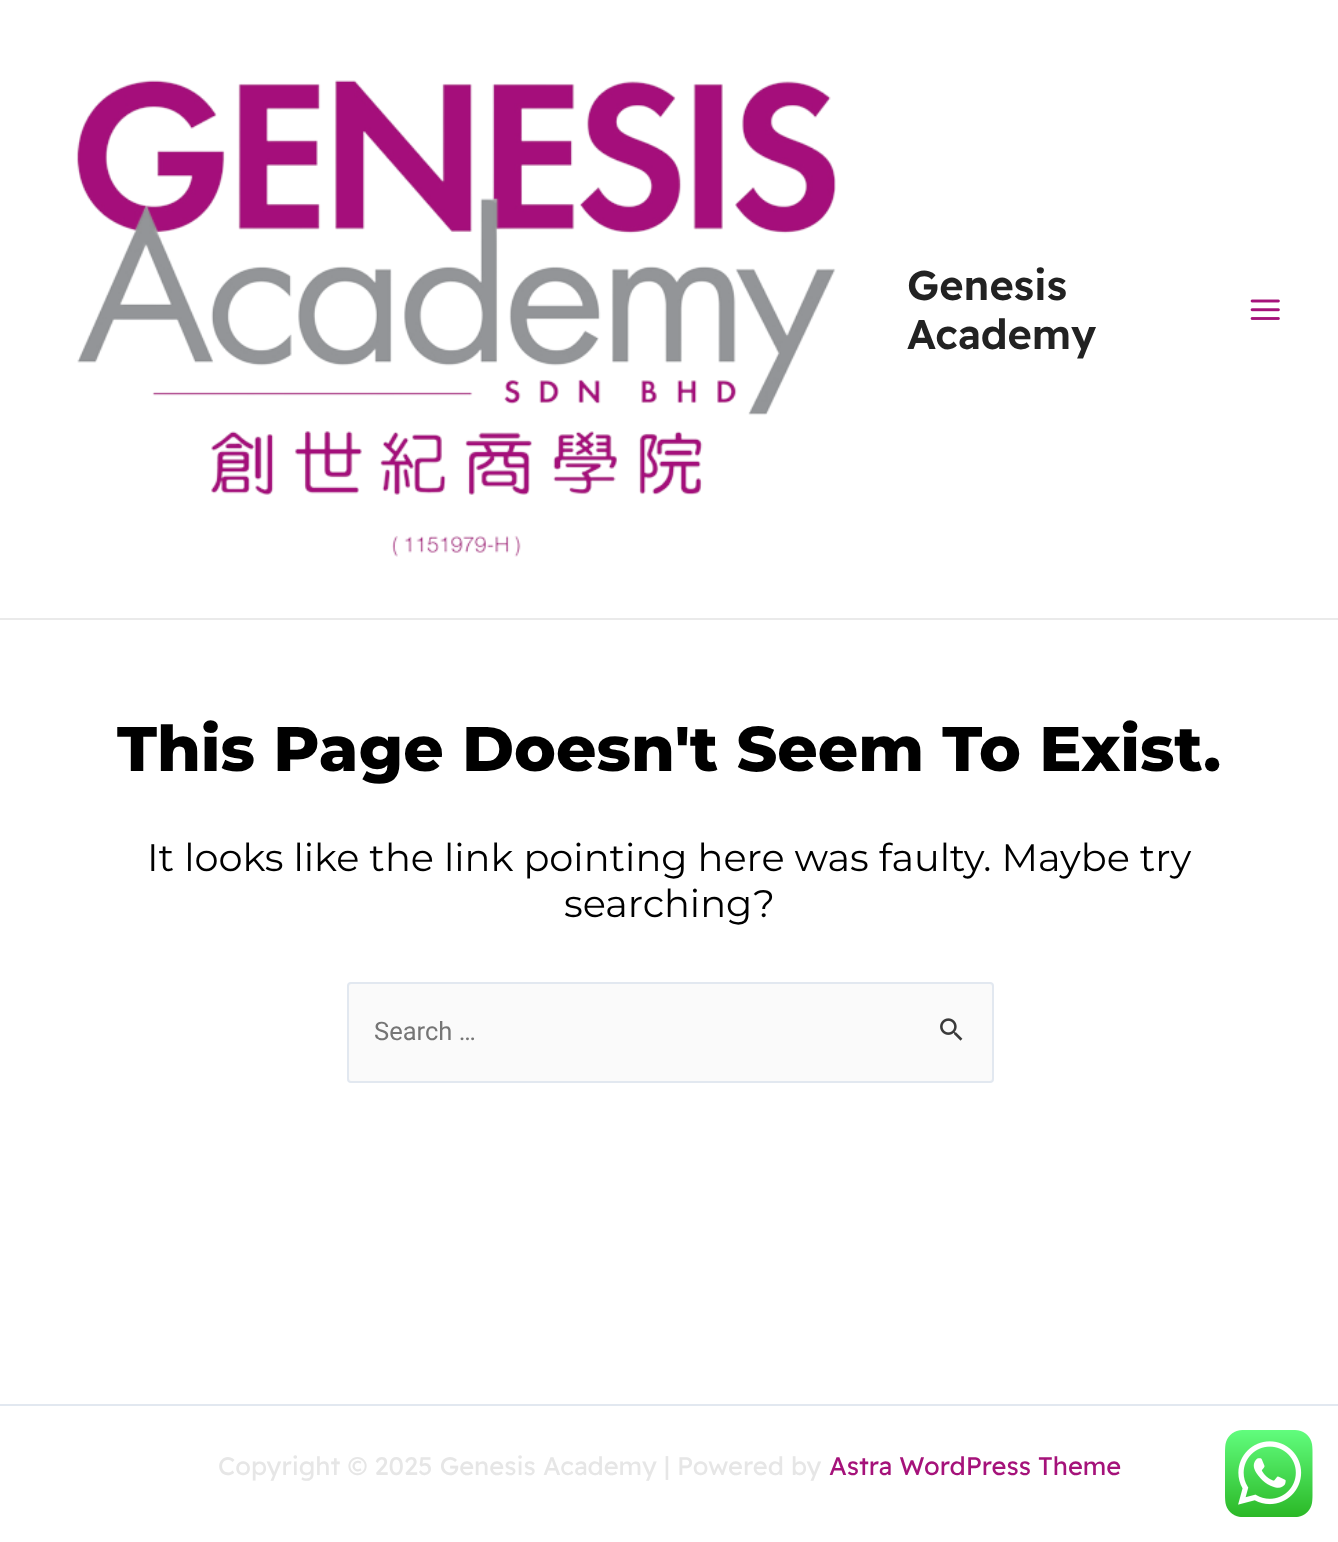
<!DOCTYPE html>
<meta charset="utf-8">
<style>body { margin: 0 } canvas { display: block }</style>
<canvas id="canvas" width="1338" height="1542"></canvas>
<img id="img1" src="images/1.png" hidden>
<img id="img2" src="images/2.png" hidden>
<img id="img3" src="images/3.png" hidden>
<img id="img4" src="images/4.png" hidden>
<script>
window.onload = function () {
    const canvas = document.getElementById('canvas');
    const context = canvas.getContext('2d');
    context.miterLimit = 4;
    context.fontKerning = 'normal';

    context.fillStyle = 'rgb(255, 255, 255)';
    context.fillRect(0, 0, 1338, 1542);
    context.fillStyle = 'rgb(234, 234, 234)';
    context.fillRect(0, 618, 1338, 2);
    context.drawImage(document.getElementById('img1'), 76, 80, 760, 477);
    context.drawImage(document.getElementById('img2'), 1250, 299, 30, 21);
    context.fillStyle = 'rgb(250, 250, 250)';
    context.beginPath();
    context.roundRect(348, 983, 645, 99, 3);
    context.fill();
    context.strokeStyle = 'rgb(226, 232, 240)';
    context.lineWidth = 2;
    context.stroke();
    context.drawImage(document.getElementById('img3'), 940, 1018, 23, 23);
    context.fillStyle = 'rgb(226, 232, 240)';
    context.fillRect(0, 1404, 1338, 2);
    context.drawImage(document.getElementById('img4'), 1225, 1430, 88, 87);
    context.font = '600 41.5px Readex Pro';
    context.fillStyle = 'rgb(34, 34, 34)';
    context.fillText('Genesis', 907, 300);
    context.fillText('Academy', 907, 349);
    context.font = '800 63px Montserrat';
    context.fillStyle = 'rgb(0, 0, 0)';
    context.fillText('This Page Doesn\'t Seem To Exist.', 117, 771);
    context.font = '38.3px Montserrat';
    context.fillText('It looks like the link pointing here was faulty. Maybe try', 147, 871);
    context.fillText('searching?', 564, 917);
    context.save();
    context.beginPath();
    context.rect(375, 1015, 532, 32);
    context.clip();
    context.font = '25.5px Roboto';
    context.fillStyle = 'rgb(117, 117, 117)';
    context.fillText('Search …', 374, 1040);
    context.restore();
    context.font = '25.5px Readex Pro';
    context.fillStyle = 'rgb(230, 230, 230)';
    context.fillText('Copyright © 2025 Genesis Academy | Powered by', 218, 1475);
    context.fillStyle = 'rgb(165, 18, 122)';
    context.fillText('Astra WordPress Theme', 829, 1475);
};
</script>
